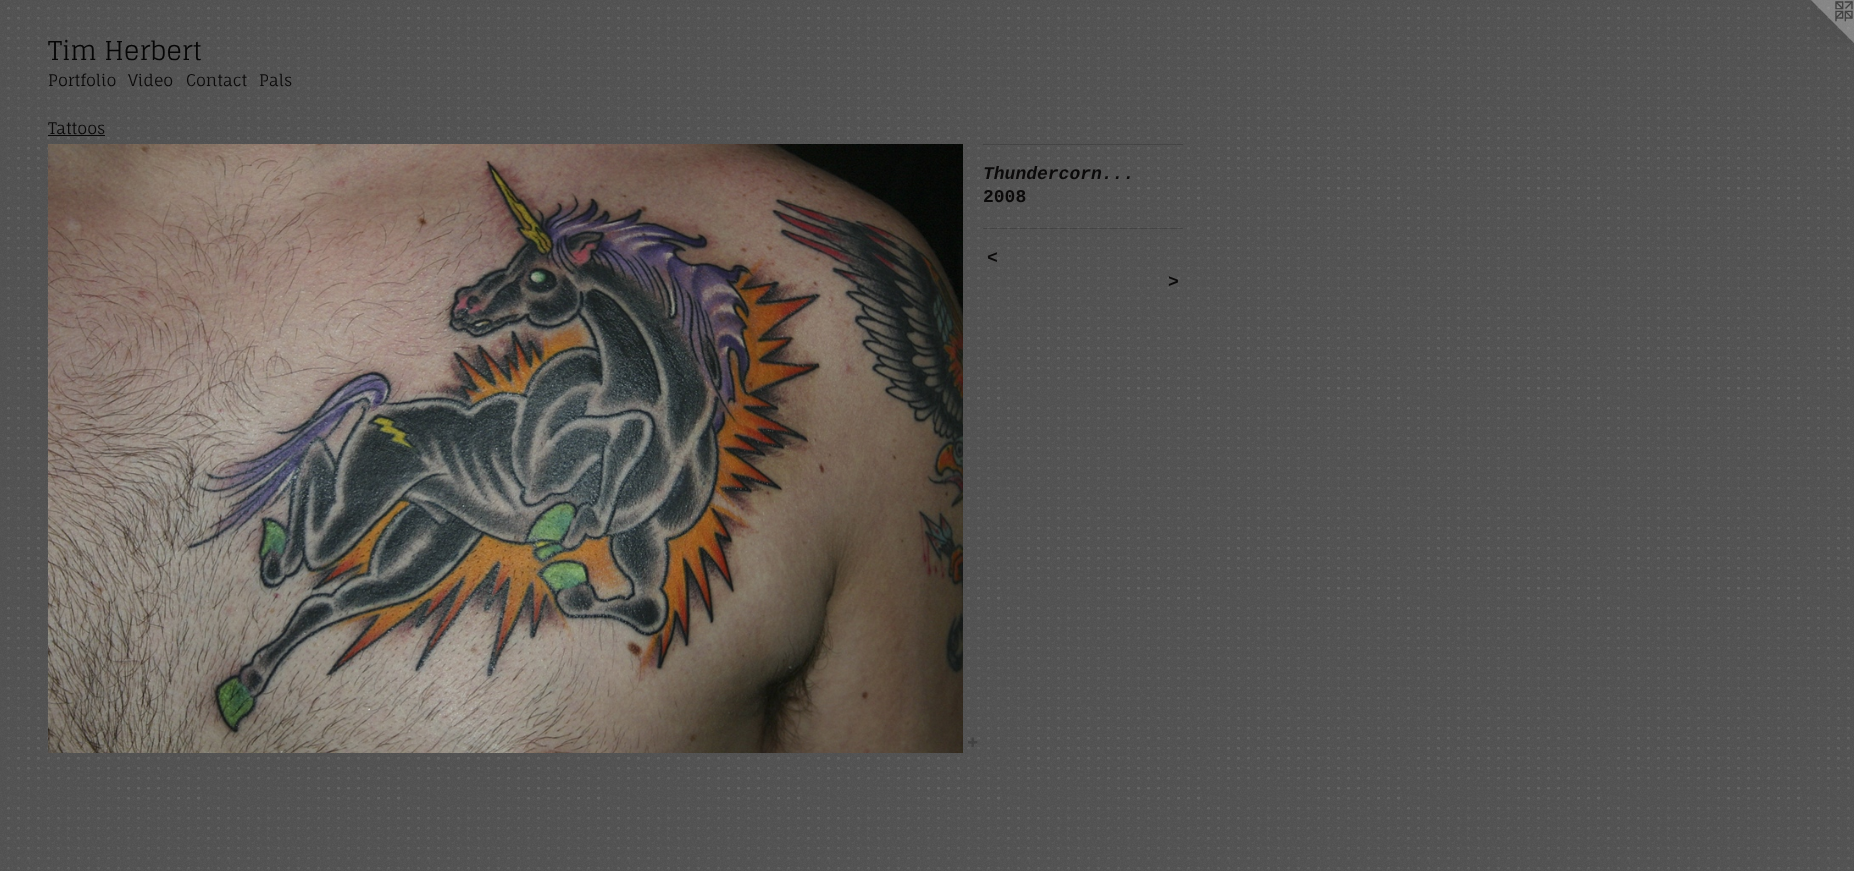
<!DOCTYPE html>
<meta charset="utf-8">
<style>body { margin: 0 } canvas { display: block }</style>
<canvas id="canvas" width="1854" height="871"></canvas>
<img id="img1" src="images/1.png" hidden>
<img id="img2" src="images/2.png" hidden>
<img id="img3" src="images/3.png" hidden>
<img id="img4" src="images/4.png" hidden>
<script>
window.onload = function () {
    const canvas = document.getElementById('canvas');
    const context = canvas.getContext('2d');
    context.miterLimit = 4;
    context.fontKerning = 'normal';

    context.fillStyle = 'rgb(255, 255, 255)';
    context.fillRect(0, 0, 1854, 871);
    context.drawImage(document.getElementById('img1'), 0, 0, 1854, 871);
    context.drawImage(document.getElementById('img2'), 1811, 0, 43, 43);
    context.fillStyle = 'rgb(11, 10, 10)';
    context.fillRect(48, 135, 57, 1);
    context.drawImage(document.getElementById('img3'), 48, 144, 915, 609);
    context.drawImage(document.getElementById('img4'), 968, 737, 10, 10);
    context.fillStyle = 'rgba(16, 15, 15, 0.2)';
    context.fillRect(983, 144, 200, 1);
    context.fillRect(983, 228, 200, 1);
    context.font = '26px Glegoo';
    context.fillStyle = 'rgb(5, 5, 5)';
    context.fillText('Tim Herbert', 48, 60);
    context.font = '16px Fauna One';
    context.fillStyle = 'rgb(11, 10, 10)';
    context.fillText('Portfolio', 48, 86);
    context.fillText('Video', 128, 86);
    context.fillText('Contact', 186, 86);
    context.fillText('Pals', 259, 86);
    context.fillText('Tattoos', 48, 134);
    context.font = 'italic bold 18px Liberation Mono';
    context.fillText('Thundercorn...', 983, 179);
    context.font = 'bold 18px Liberation Mono';
    context.fillText('2008', 983, 202);
    context.letterSpacing = '1px';
    context.font = 'italic bold 18px Liberation Mono';
    context.fillText('<', 987, 263);
    context.fillText('>', 1168, 287);
};
</script>
